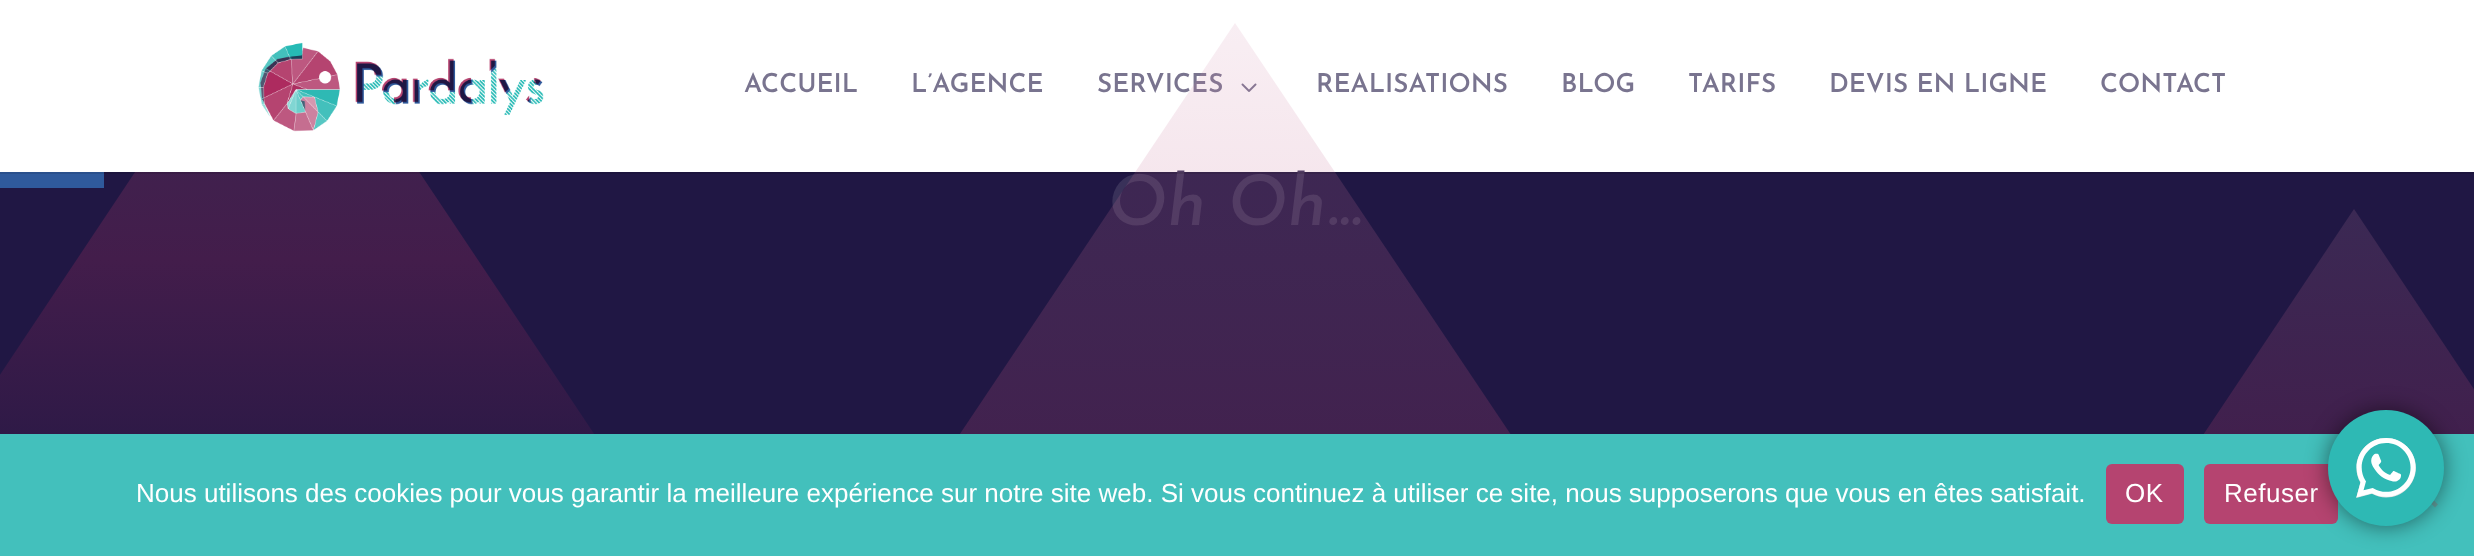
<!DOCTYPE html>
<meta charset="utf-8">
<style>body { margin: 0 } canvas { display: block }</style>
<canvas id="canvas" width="2474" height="556"></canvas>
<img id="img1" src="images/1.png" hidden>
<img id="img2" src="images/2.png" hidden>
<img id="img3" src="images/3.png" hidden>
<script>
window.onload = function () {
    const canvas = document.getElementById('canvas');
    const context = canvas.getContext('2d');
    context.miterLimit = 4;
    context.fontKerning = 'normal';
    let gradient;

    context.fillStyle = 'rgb(32, 23, 68)';
    context.fillRect(0, 0, 2474, 556);
    gradient = context.createLinearGradient(278, -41, 278, 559);
    gradient.addColorStop(0, 'rgb(59, 41, 84)');
    gradient.addColorStop(0.5, 'rgb(67, 29, 75)');
    gradient.addColorStop(1, 'rgb(32, 23, 68)');
    context.fillStyle = gradient;
    context.beginPath();
    context.moveTo(677, 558);
    context.lineTo(-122, 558);
    context.lineTo(277, -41);
    context.closePath();
    context.fill();
    context.fillStyle = 'rgb(47, 90, 156)';
    context.fillRect(0, 172, 104, 16);
    context.fillStyle = 'rgb(255, 255, 255)';
    context.fillRect(0, 0, 2474, 172);
    context.drawImage(document.getElementById('img1'), 258, 42, 286, 90);
    context.drawImage(document.getElementById('img2'), 1241, 83, 16, 9);
    gradient = context.createLinearGradient(2354, 209, 2354, 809);
    gradient.addColorStop(0, 'rgb(59, 41, 84)');
    gradient.addColorStop(0.5, 'rgb(67, 29, 75)');
    gradient.addColorStop(1, 'rgb(32, 23, 68)');
    context.fillStyle = gradient;
    context.beginPath();
    context.moveTo(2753, 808);
    context.lineTo(1954, 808);
    context.lineTo(2354, 209);
    context.closePath();
    context.fill();
    context.font = '100 26px Josefin Sans';
    context.fillStyle = 'rgb(121, 116, 143)';
    context.fillText('ACCUEIL', 744, 92);
    context.fillText('L’AGENCE', 911, 92);
    context.fillText('SERVICES', 1097, 92);
    context.fillText('REALISATIONS', 1316, 92);
    context.fillText('BLOG', 1561, 92);
    context.fillText('TARIFS', 1688, 92);
    context.fillText('DEVIS EN LIGNE', 1829, 92);
    context.fillText('CONTACT', 2100, 92);
    context.font = 'italic 100 70px Josefin Sans';
    context.fillStyle = 'rgb(57, 49, 89)';
    context.fillText('Oh Oh...', 1107, 225);
    gradient = context.createLinearGradient(1236, 23, 1236, 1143);
    gradient.addColorStop(0, 'rgba(211, 141, 174, 0.15)');
    gradient.addColorStop(0.5, 'rgba(172, 47, 96, 0.25)');
    gradient.addColorStop(1, 'rgba(32, 23, 68, 0.75)');
    context.fillStyle = gradient;
    context.beginPath();
    context.moveTo(1985, 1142);
    context.lineTo(486, 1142);
    context.lineTo(1235, 23);
    context.closePath();
    context.fill();
    context.fillStyle = 'rgba(0, 0, 0, 0.1)';
    context.fillRect(0, 172, 2474, 2);
    context.fillStyle = 'rgb(67, 192, 188)';
    context.fillRect(0, 434, 2474, 122);
    context.font = '26px Liberation Sans';
    context.fillStyle = 'rgb(255, 255, 255)';
    context.fillText('Nous utilisons des cookies pour vous garantir la meilleure expérience sur notre site web. Si vous continuez à utiliser ce site, nous supposerons que vous en êtes satisfait.', 136, 502);
    context.fillStyle = 'rgb(181, 68, 112)';
    context.beginPath();
    context.roundRect(2106, 464, 78, 60, 6);
    context.fill();
    context.letterSpacing = '0.5px';
    context.fillStyle = 'rgb(255, 255, 255)';
    context.fillText('OK', 2125, 502);
    context.fillStyle = 'rgb(181, 68, 112)';
    context.beginPath();
    context.roundRect(2204, 464, 134, 60, 6);
    context.fill();
    context.fillStyle = 'rgb(255, 255, 255)';
    context.fillText('Refuser', 2224, 502);
    context.fillStyle = 'rgb(98, 160, 158)';
    context.beginPath();
    context.moveTo(2414, 486.5);
    context.lineTo(2417, 483.5);
    context.lineTo(2438, 504.5);
    context.lineTo(2435, 507.5);
    context.closePath();
    context.fill();
    context.fillStyle = 'rgba(0, 0, 0, 0.5)';
    context.filter = 'blur(11px)';
    context.beginPath();
    context.roundRect(2328, 410, 116, 116, 58);
    context.fill();
    context.filter = 'none';
    context.fillStyle = 'rgb(46, 185, 180)';
    context.beginPath();
    context.arc(2386, 468, 58, 0, 2 * Math.PI);
    context.fill();
    context.drawImage(document.getElementById('img3'), 2356, 438, 60, 60);
};
</script>
